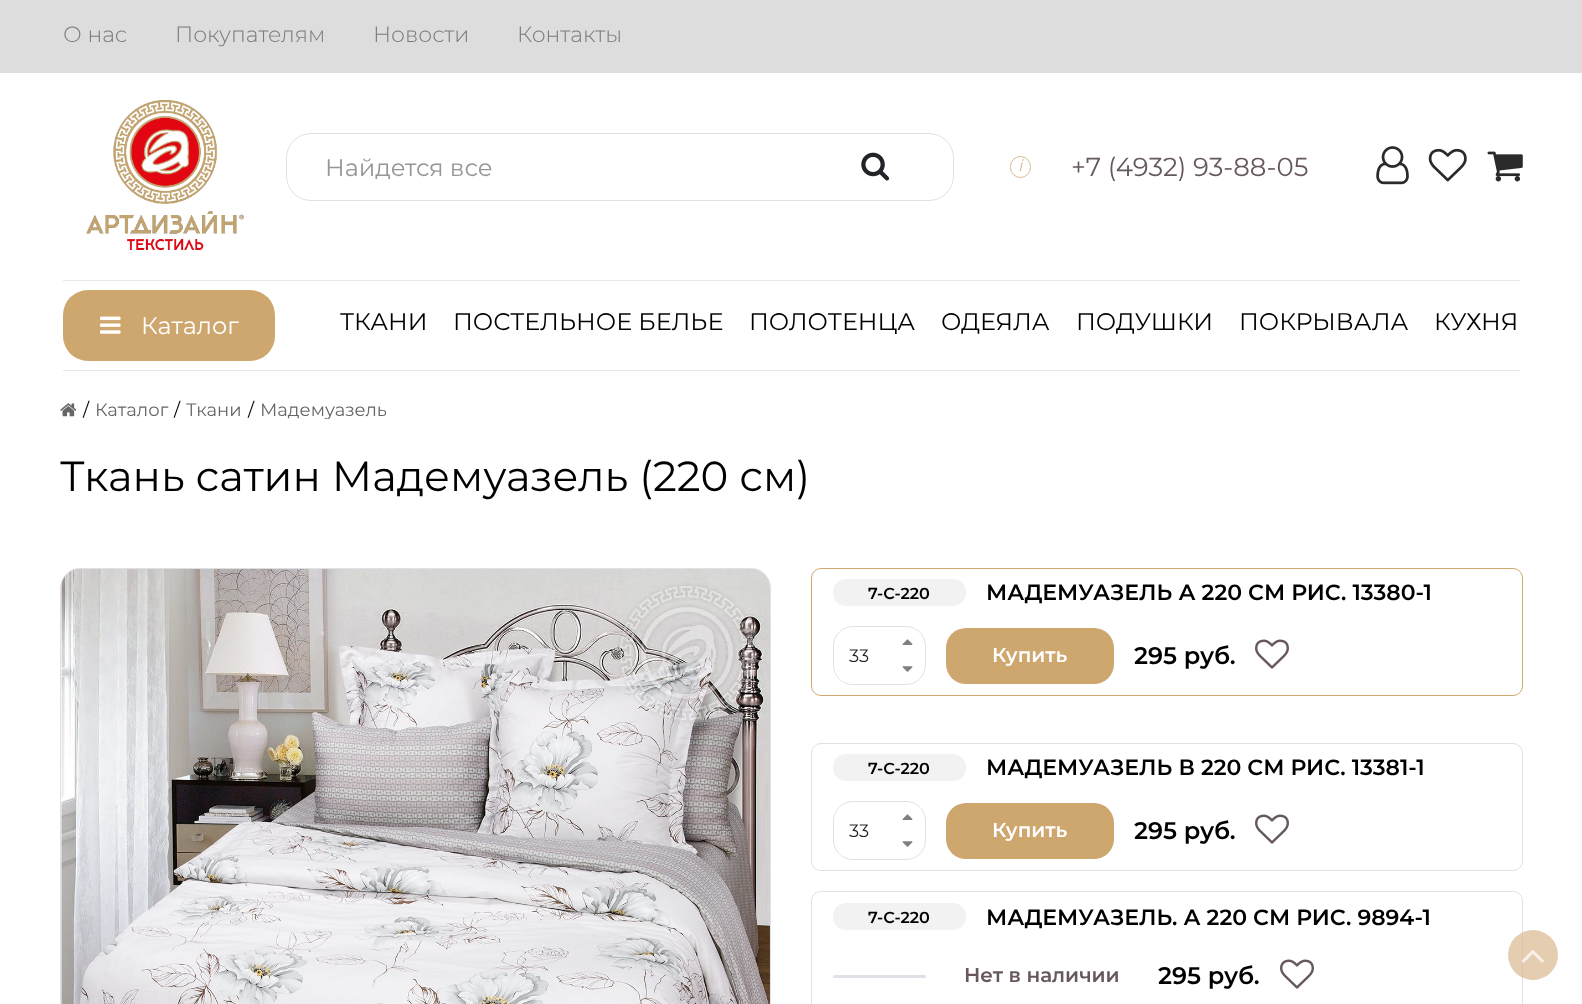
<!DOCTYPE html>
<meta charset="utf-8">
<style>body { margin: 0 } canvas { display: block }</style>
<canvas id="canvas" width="1582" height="1004"></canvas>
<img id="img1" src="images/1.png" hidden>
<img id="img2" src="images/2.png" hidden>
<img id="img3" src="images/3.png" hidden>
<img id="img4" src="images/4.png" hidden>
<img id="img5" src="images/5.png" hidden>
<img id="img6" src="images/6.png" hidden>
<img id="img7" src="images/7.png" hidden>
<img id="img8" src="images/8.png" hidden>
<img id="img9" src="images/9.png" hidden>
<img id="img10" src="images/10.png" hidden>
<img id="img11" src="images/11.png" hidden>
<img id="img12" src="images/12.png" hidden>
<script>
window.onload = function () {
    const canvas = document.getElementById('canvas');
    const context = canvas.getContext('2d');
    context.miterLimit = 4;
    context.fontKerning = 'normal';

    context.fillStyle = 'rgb(255, 255, 255)';
    context.fillRect(0, 0, 1582, 1004);
    context.fillStyle = 'rgb(221, 221, 221)';
    context.fillRect(0, 0, 1582, 73);
    context.drawImage(document.getElementById('img1'), 86, 100, 158, 150);
    context.beginPath();
    context.roundRect(286.5, 133.5, 667, 67, 24.5);
    context.strokeStyle = 'rgb(222, 226, 230)';
    context.stroke();
    context.drawImage(document.getElementById('img2'), 861, 152, 29, 29);
    context.beginPath();
    context.roundRect(1010.5, 156.5, 20, 21, 10);
    context.strokeStyle = 'rgb(217, 184, 144)';
    context.stroke();
    context.drawImage(document.getElementById('img3'), 1376, 146, 33, 39);
    context.drawImage(document.getElementById('img4'), 1428, 148, 39, 34);
    context.drawImage(document.getElementById('img5'), 1487, 151, 36, 31);
    context.fillStyle = 'rgb(232, 232, 232)';
    context.fillRect(63, 280, 1457, 1);
    context.fillRect(63, 370, 1457, 1);
    context.fillStyle = 'rgb(206, 167, 111)';
    context.beginPath();
    context.roundRect(63, 290, 212, 71, 25);
    context.fill();
    context.drawImage(document.getElementById('img6'), 100, 316, 21, 18);
    context.drawImage(document.getElementById('img7'), 60, 403, 16, 14);
    context.beginPath();
    context.roundRect(60.5, 568.5, 710, 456, 19.5);
    context.strokeStyle = 'rgb(222, 226, 230)';
    context.stroke();
    context.drawImage(document.getElementById('img8'), 61, 568, 709, 436);
    context.beginPath();
    context.roundRect(811.5, 568.5, 711, 127, 9.5);
    context.strokeStyle = 'rgb(206, 167, 111)';
    context.stroke();
    context.fillStyle = 'rgb(242, 242, 242)';
    context.beginPath();
    context.roundRect(833, 579, 133, 27, 13);
    context.fill();
    context.beginPath();
    context.roundRect(833.5, 626.5, 92, 58, 19.5);
    context.strokeStyle = 'rgb(222, 226, 230)';
    context.stroke();
    context.save();
    context.beginPath();
    context.roundRect(834, 628, 91, 56, 19);
    context.clip();
    context.fillStyle = 'rgb(255, 255, 255)';
    context.beginPath();
    context.roundRect(839, 628, 56, 56, 8);
    context.fill();
    context.restore();
    context.drawImage(document.getElementById('img9'), 902, 639, 11, 6);
    context.drawImage(document.getElementById('img10'), 902, 666, 11, 6);
    context.fillStyle = 'rgb(206, 167, 111)';
    context.beginPath();
    context.roundRect(946, 628, 168, 56, 20);
    context.fill();
    context.drawImage(document.getElementById('img11'), 1255, 639, 34, 30);
    context.beginPath();
    context.roundRect(811.5, 743.5, 711, 127, 9.5);
    context.stroke();
    context.fillStyle = 'rgb(242, 242, 242)';
    context.beginPath();
    context.roundRect(833, 754, 133, 27, 13);
    context.fill();
    context.beginPath();
    context.roundRect(833.5, 801.5, 92, 58, 19.5);
    context.stroke();
    context.save();
    context.beginPath();
    context.roundRect(834, 803, 91, 56, 19);
    context.clip();
    context.fillStyle = 'rgb(255, 255, 255)';
    context.beginPath();
    context.roundRect(839, 803, 56, 56, 8);
    context.fill();
    context.restore();
    context.drawImage(document.getElementById('img9'), 902, 814, 11, 6);
    context.drawImage(document.getElementById('img10'), 902, 841, 11, 6);
    context.fillStyle = 'rgb(206, 167, 111)';
    context.beginPath();
    context.roundRect(946, 803, 168, 56, 20);
    context.fill();
    context.drawImage(document.getElementById('img11'), 1255, 814, 34, 30);
    context.beginPath();
    context.roundRect(811.5, 891.5, 711, 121, 9.5);
    context.stroke();
    context.fillStyle = 'rgb(242, 242, 242)';
    context.beginPath();
    context.roundRect(833, 903, 133, 27, 13);
    context.fill();
    context.fillStyle = 'rgb(222, 226, 230)';
    context.beginPath();
    context.roundRect(833, 975, 93, 3, 1.5);
    context.fill();
    context.drawImage(document.getElementById('img11'), 1280, 959, 34, 30);
    context.fillStyle = 'rgba(217, 184, 144, 0.7)';
    context.beginPath();
    context.arc(1533, 955, 25, 0, 2 * Math.PI);
    context.fill();
    context.drawImage(document.getElementById('img12'), 1521, 949, 23, 14);
    context.font = '300 22px Montserrat';
    context.fillStyle = 'rgb(122, 122, 122)';
    context.fillText('О нас', 63, 42);
    context.fillText('Покупателям', 175, 42);
    context.fillText('Новости', 373, 42);
    context.fillText('Контакты', 517, 42);
    context.font = '24px Montserrat';
    context.fillStyle = 'rgb(150, 150, 150)';
    context.fillText('Найдется все', 325, 176);
    context.font = 'italic 16px Montserrat';
    context.fillStyle = 'rgb(217, 184, 144)';
    context.fillText('i', 1018, 171);
    context.font = '26px Montserrat';
    context.fillStyle = 'rgb(102, 88, 91)';
    context.fillText('+7 (4932) 93-88-05', 1071, 176);
    context.font = '24px Montserrat';
    context.fillStyle = 'rgb(255, 255, 255)';
    context.fillText('Каталог', 141, 334);
    context.fillStyle = 'rgb(0, 0, 0)';
    context.fillText('ТКАНИ', 340, 330);
    context.fillText('ПОСТЕЛЬНОЕ БЕЛЬЕ', 453, 330);
    context.fillText('ПОЛОТЕНЦА', 749, 330);
    context.fillText('ОДЕЯЛА', 941, 330);
    context.fillText('ПОДУШКИ', 1076, 330);
    context.fillText('ПОКРЫВАЛА', 1239, 330);
    context.fillText('КУХНЯ', 1434, 330);
    context.font = '18px Montserrat';
    context.fillText('/', 83, 416);
    context.fillStyle = 'rgb(102, 102, 102)';
    context.fillText('Каталог', 95, 416);
    context.fillStyle = 'rgb(0, 0, 0)';
    context.fillText('/', 174, 416);
    context.fillStyle = 'rgb(102, 102, 102)';
    context.fillText('Ткани', 186, 416);
    context.fillStyle = 'rgb(0, 0, 0)';
    context.fillText('/', 248, 416);
    context.save();
    context.beginPath();
    context.rect(260, 401, 126, 18);
    context.clip();
    context.fillStyle = 'rgb(102, 102, 102)';
    context.fillText('Мадемуазель', 260, 416);
    context.restore();
    context.font = '42px Montserrat';
    context.fillText('Ткань сатин Мадемуазель (220 см)', 60, 491);
    context.font = '600 16px Montserrat';
    context.fillText('7-С-220', 868, 599);
    context.font = '600 22px Montserrat';
    context.fillText('МАДЕМУАЗЕЛЬ А 220 СМ РИС. 13380-1', 986, 600);
    context.font = '18px Montserrat';
    context.fillStyle = 'rgb(33, 37, 41)';
    context.fillText('33', 849, 662);
    context.font = '600 20px Montserrat';
    context.fillStyle = 'rgb(255, 255, 255)';
    context.fillText('Купить', 992, 662);
    context.font = '600 24px Montserrat';
    context.fillStyle = 'rgb(0, 0, 0)';
    context.fillText('295 руб.', 1134, 664);
    context.font = '600 16px Montserrat';
    context.fillText('7-С-220', 868, 774);
    context.font = '600 22px Montserrat';
    context.fillText('МАДЕМУАЗЕЛЬ В 220 СМ РИС. 13381-1', 986, 775);
    context.font = '18px Montserrat';
    context.fillStyle = 'rgb(33, 37, 41)';
    context.fillText('33', 849, 837);
    context.font = '600 20px Montserrat';
    context.fillStyle = 'rgb(255, 255, 255)';
    context.fillText('Купить', 992, 837);
    context.font = '600 24px Montserrat';
    context.fillStyle = 'rgb(0, 0, 0)';
    context.fillText('295 руб.', 1134, 839);
    context.font = '600 16px Montserrat';
    context.fillText('7-С-220', 868, 923);
    context.font = '600 22px Montserrat';
    context.fillText('МАДЕМУАЗЕЛЬ. А 220 СМ РИС. 9894-1', 986, 925);
    context.font = '600 20px Montserrat';
    context.fillStyle = 'rgb(102, 88, 91)';
    context.fillText('Нет в наличии', 964, 982);
    context.font = '600 24px Montserrat';
    context.fillStyle = 'rgb(0, 0, 0)';
    context.fillText('295 руб.', 1158, 984);
};
</script>
